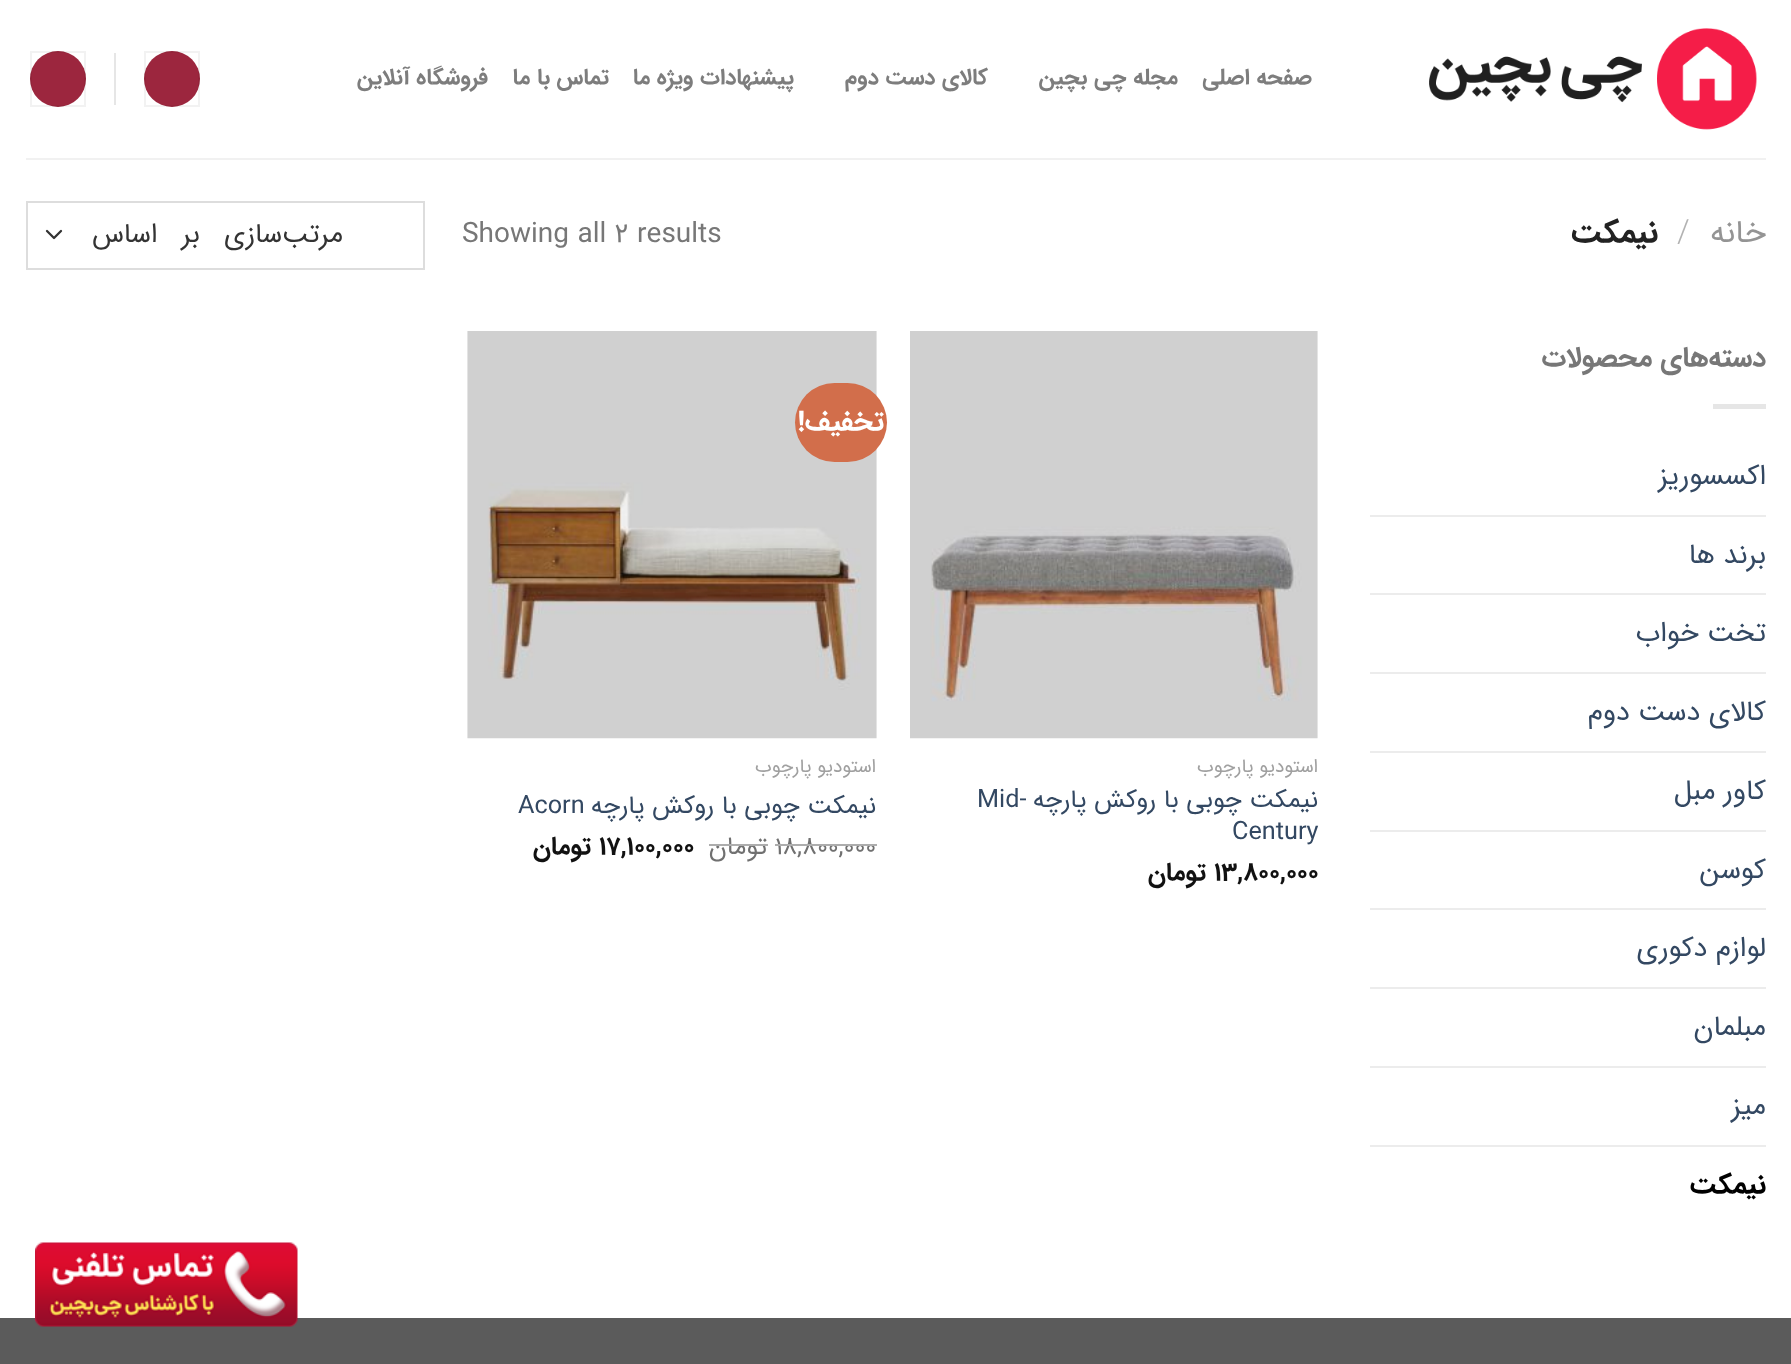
<!DOCTYPE html>
<meta charset="utf-8">
<style>body { margin: 0 } canvas { display: block }</style>
<canvas id="canvas" width="1791" height="1364"></canvas>
<img id="img1" src="images/1.png" hidden>
<img id="img2" src="images/2.png" hidden>
<img id="img3" src="images/3.png" hidden>
<img id="img4" src="images/4.png" hidden>
<script>
window.onload = function () {
    const canvas = document.getElementById('canvas');
    const context = canvas.getContext('2d');
    context.miterLimit = 4;
    context.fontKerning = 'normal';

    context.fillStyle = 'rgb(255, 255, 255)';
    context.fillRect(0, 0, 1791, 1364);
    context.drawImage(document.getElementById('img1'), 1429, 28, 328, 102);
    context.fillStyle = 'rgb(156, 38, 62)';
    context.beginPath();
    context.arc(172, 79, 28, 0, 2 * Math.PI);
    context.fill();
    context.strokeStyle = 'rgba(0, 0, 0, 0.05)';
    context.lineWidth = 2;
    context.strokeRect(145, 52, 54, 54);
    context.fillStyle = 'rgb(230, 230, 230)';
    context.fillRect(114, 53, 2, 52);
    context.fillStyle = 'rgb(156, 38, 62)';
    context.beginPath();
    context.arc(58, 79, 28, 0, 2 * Math.PI);
    context.fill();
    context.strokeRect(31, 52, 54, 54);
    context.fillStyle = 'rgb(241, 241, 241)';
    context.fillRect(26, 158, 1740, 2);
    context.beginPath();
    context.moveTo(47, 231);
    context.lineTo(54, 238);
    context.lineTo(61, 231);
    context.strokeStyle = 'rgb(51, 51, 51)';
    context.lineWidth = 2.3;
    context.lineCap = 'round';
    context.lineJoin = 'round';
    context.stroke();
    context.strokeStyle = 'rgb(221, 221, 221)';
    context.lineWidth = 2;
    context.lineJoin = 'miter';
    context.strokeRect(27, 202, 397, 67);
    context.fillStyle = 'rgb(230, 230, 230)';
    context.fillRect(1713, 404, 53, 5);
    context.fillStyle = 'rgb(236, 236, 236)';
    context.fillRect(1370, 515, 396, 2);
    context.fillRect(1370, 593, 396, 2);
    context.fillRect(1370, 672, 396, 2);
    context.fillRect(1370, 751, 396, 2);
    context.fillRect(1370, 830, 396, 2);
    context.fillRect(1370, 908, 396, 2);
    context.fillRect(1370, 987, 396, 2);
    context.fillRect(1370, 1066, 396, 2);
    context.fillRect(1370, 1145, 396, 2);
    context.drawImage(document.getElementById('img2'), 910, 331, 408, 408);
    context.drawImage(document.getElementById('img3'), 467, 331, 410, 408);
    context.fillStyle = 'rgb(210, 110, 75)';
    context.beginPath();
    context.roundRect(795, 383, 92, 79, 39.5);
    context.fill();
    context.fillStyle = 'rgb(91, 91, 91)';
    context.fillRect(0, 1318, 1791, 46);
    context.drawImage(document.getElementById('img4'), 35, 1242, 263, 85);
    context.direction = 'rtl';
    context.font = 'bold 22.5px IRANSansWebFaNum';
    context.fillStyle = 'rgb(125, 125, 125)';
    context.fillText('صفحه اصلی', 1312, 84);
    context.fillText('مجله چی بچین', 1178, 84);
    context.fillText('کالای دست دوم', 988, 84);
    context.fillText('پیشنهادات ویژه ما', 794, 84);
    context.fillText('تماس با ما', 609, 84);
    context.fillText('فروشگاه آنلاین', 488, 84);
    context.font = '32px IRANSansWebFaNum';
    context.fillStyle = 'rgb(148, 148, 148)';
    context.fillText('خانه', 1766, 242);
    context.direction = 'ltr';
    context.font = '300 32px IRANSansWebFaNum';
    context.fillStyle = 'rgb(178, 178, 178)';
    context.fillText('/', 1677, 242);
    context.direction = 'rtl';
    context.font = 'bold 32px IRANSansWebFaNum';
    context.fillStyle = 'rgb(34, 34, 34)';
    context.fillText('نیمکت', 1658, 242);
    context.direction = 'ltr';
    context.font = '28px IRANSansWebFaNum';
    context.fillStyle = 'rgb(119, 119, 119)';
    context.fillText('Showing all 2 results', 462, 242);
    context.wordSpacing = '16px';
    context.direction = 'rtl';
    context.font = '27.25px IRANSansWebFaNum';
    context.fillStyle = 'rgb(51, 51, 51)';
    context.fillText('مرتب‌سازی بر اساس', 343, 242);
    context.wordSpacing = '0px';
    context.font = 'bold 28px IRANSansWebFaNum';
    context.fillStyle = 'rgb(119, 119, 119)';
    context.fillText('دسته‌های محصولات', 1766, 366);
    context.font = '28px IRANSansWebFaNum';
    context.fillStyle = 'rgb(51, 72, 98)';
    context.fillText('اکسسوریز', 1766, 484);
    context.fillText('برند ها', 1766, 563);
    context.fillText('تخت خواب', 1766, 641);
    context.fillText('کالای دست دوم', 1766, 720);
    context.fillText('کاور مبل', 1766, 799);
    context.fillText('کوسن', 1766, 878);
    context.fillText('لوازم دکوری', 1766, 956);
    context.fillText('مبلمان', 1766, 1035);
    context.fillText('میز', 1766, 1114);
    context.font = 'bold 28px IRANSansWebFaNum';
    context.fillStyle = 'rgb(0, 0, 0)';
    context.fillText('نیمکت', 1766, 1193);
    context.font = '19px IRANSansWebFaNum';
    context.fillStyle = 'rgb(160, 160, 160)';
    context.fillText('استودیو پارچوب', 1318, 772);
    context.font = '25.25px IRANSansWebFaNum';
    context.fillStyle = 'rgb(51, 72, 98)';
    context.fillText('نیمکت چوبی با روکش پارچه', 1318, 807);
    context.direction = 'ltr';
    context.fillText('Mid-', 977, 807);
    context.fillText('Century', 1232, 839);
    context.font = 'bold 25.25px IRANSansWebFaNum';
    context.fillStyle = 'rgb(17, 17, 17)';
    context.fillText('13,800,000', 1214, 880);
    context.direction = 'rtl';
    context.fillText('تومان', 1206, 880);
    context.font = 'bold 28px IRANSansWebFaNum';
    context.fillStyle = 'rgb(255, 255, 255)';
    context.fillText('تخفیف!', 884, 430);
    context.font = '19px IRANSansWebFaNum';
    context.fillStyle = 'rgb(160, 160, 160)';
    context.fillText('استودیو پارچوب', 876, 772);
    context.font = '25.25px IRANSansWebFaNum';
    context.fillStyle = 'rgb(51, 72, 98)';
    context.fillText('نیمکت چوبی با روکش پارچه', 876, 813);
    context.direction = 'ltr';
    context.fillText('Acorn', 518, 813);
    context.fillStyle = 'rgb(112, 112, 112)';
    context.fillText('18,800,000', 775, 854);
    context.fillStyle = 'rgb(173, 173, 173)';
    context.fillRect(775, 844, 102, 2);
    context.direction = 'rtl';
    context.fillStyle = 'rgb(112, 112, 112)';
    context.fillText('تومان', 767, 854);
    context.fillStyle = 'rgb(173, 173, 173)';
    context.fillRect(709, 844, 59, 2);
    context.direction = 'ltr';
    context.font = 'bold 25.25px IRANSansWebFaNum';
    context.fillStyle = 'rgb(17, 17, 17)';
    context.fillText('17,100,000', 599, 854);
    context.direction = 'rtl';
    context.fillText('تومان', 591, 854);
};
</script>
